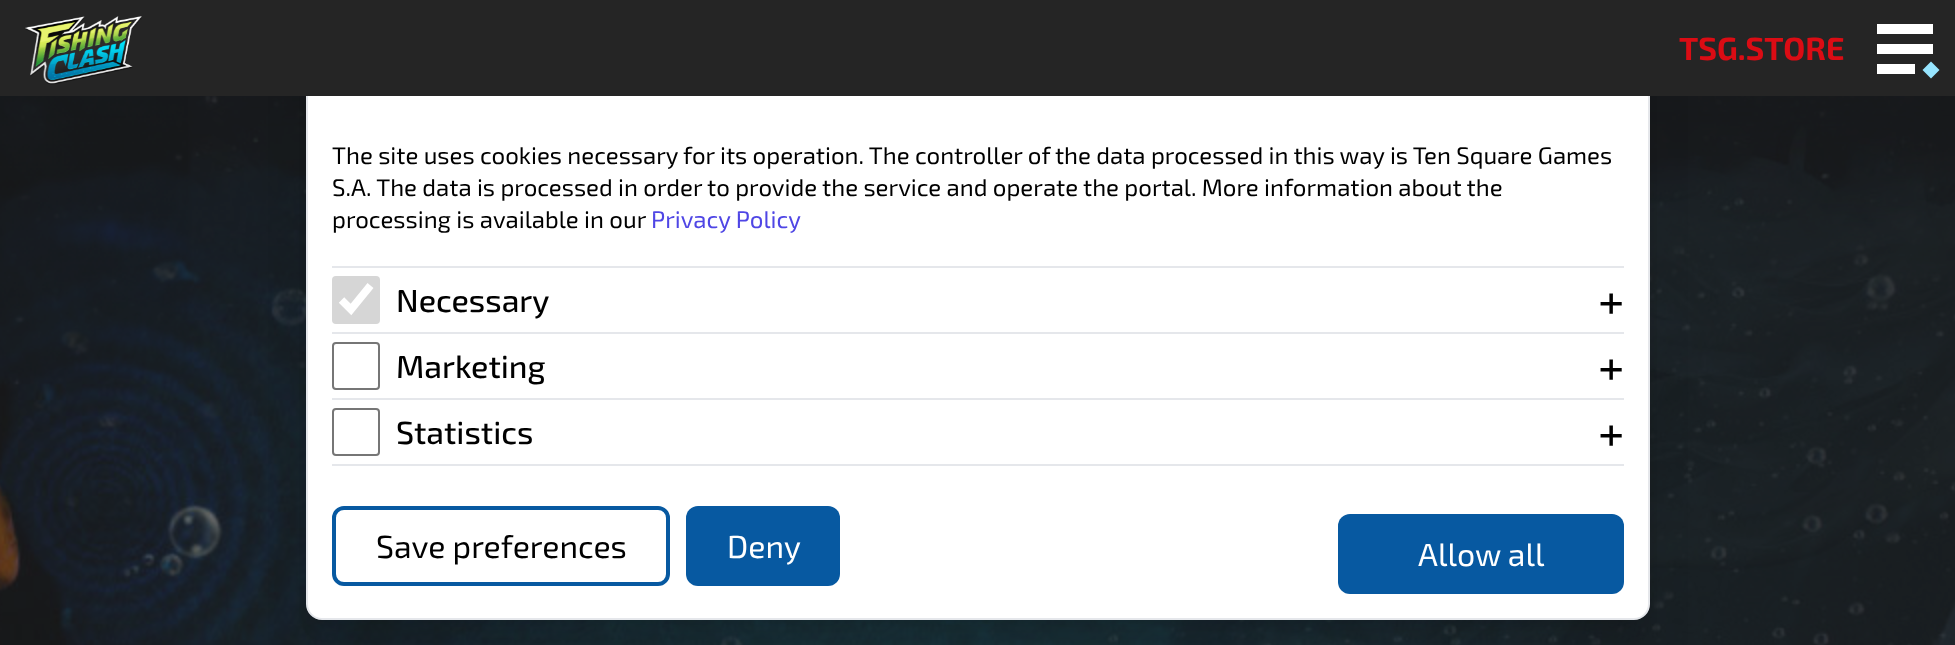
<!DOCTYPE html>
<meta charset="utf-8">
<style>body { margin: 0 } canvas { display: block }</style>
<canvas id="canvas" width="1955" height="645"></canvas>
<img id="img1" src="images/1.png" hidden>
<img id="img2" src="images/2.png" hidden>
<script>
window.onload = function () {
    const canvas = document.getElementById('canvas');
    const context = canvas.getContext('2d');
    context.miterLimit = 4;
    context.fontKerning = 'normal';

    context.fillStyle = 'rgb(255, 255, 255)';
    context.fillRect(0, 0, 1955, 645);
    context.drawImage(document.getElementById('img1'), 0, 96, 1955, 549);
    context.fillStyle = 'rgba(0, 0, 0, 0.1)';
    context.filter = 'blur(10px)';
    context.beginPath();
    context.roundRect(318, 68, 1320, 556, 4);
    context.fill();
    context.filter = 'none';
    context.filter = 'blur(25px)';
    context.beginPath();
    context.roundRect(316, 90, 1324, 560, 6);
    context.fill();
    context.filter = 'none';
    context.fillStyle = 'rgb(255, 255, 255)';
    context.beginPath();
    context.roundRect(307, 41, 1342, 578, 15);
    context.fill();
    context.strokeStyle = 'rgb(229, 231, 235)';
    context.lineWidth = 2;
    context.stroke();
    context.fillStyle = 'rgb(37, 37, 37)';
    context.fillRect(0, 0, 1955, 96);
    context.drawImage(document.getElementById('img2'), 25, 16, 117, 69);
    context.fillStyle = 'rgb(255, 255, 255)';
    context.fillRect(1877, 24, 56, 10);
    context.fillRect(1877, 44, 56, 10);
    context.fillRect(1877, 64, 38, 10);
    context.fillStyle = 'rgb(151, 229, 255)';
    context.beginPath();
    context.moveTo(1931, 61.5);
    context.lineTo(1939.5, 70);
    context.lineTo(1931, 78.5);
    context.lineTo(1922.5, 70);
    context.closePath();
    context.fill();
    context.fillStyle = 'rgb(229, 231, 235)';
    context.fillRect(332, 266, 1292, 2);
    context.fillStyle = 'rgb(214, 214, 214)';
    context.beginPath();
    context.roundRect(332, 276, 48, 48, 4);
    context.fill();
    context.beginPath();
    context.moveTo(341.5, 300);
    context.lineTo(351, 309.5);
    context.lineTo(370.5, 285.5);
    context.strokeStyle = 'rgb(255, 255, 255)';
    context.lineWidth = 7.7;
    context.stroke();
    context.fillStyle = 'rgb(229, 231, 235)';
    context.fillRect(332, 332, 1292, 2);
    context.beginPath();
    context.roundRect(333, 343, 46, 46, 3);
    context.strokeStyle = 'rgb(118, 118, 118)';
    context.lineWidth = 2;
    context.stroke();
    context.fillRect(332, 398, 1292, 2);
    context.beginPath();
    context.roundRect(333, 409, 46, 46, 3);
    context.stroke();
    context.fillRect(332, 464, 1292, 2);
    context.beginPath();
    context.roundRect(334, 508, 334, 76, 10);
    context.strokeStyle = 'rgb(7, 89, 161)';
    context.lineWidth = 4;
    context.stroke();
    context.fillStyle = 'rgb(7, 89, 161)';
    context.beginPath();
    context.roundRect(686, 506, 154, 80, 12);
    context.fill();
    context.beginPath();
    context.roundRect(1338, 514, 286, 80, 12);
    context.fill();
    context.font = 'bold 32px "Exo 2"';
    context.fillStyle = 'rgb(219, 12, 20)';
    context.fillText('TSG.STORE', 1679, 60);
    context.font = '24px "Exo 2"';
    context.fillStyle = 'rgb(0, 0, 0)';
    context.fillText('The site uses cookies necessary for its operation. The controller of the data processed in this way is Ten Square Games', 332, 164);
    context.fillText('S.A. The data is processed in order to provide the service and operate the portal. More information about the', 332, 196);
    context.fillText('processing is available in our', 332, 228);
    context.fillStyle = 'rgb(79, 70, 229)';
    context.fillText('Privacy Policy', 651, 228);
    context.font = '500 32px "Exo 2"';
    context.fillStyle = 'rgb(0, 0, 0)';
    context.fillText('Necessary', 396, 312);
    context.font = '500 48px "Exo 2"';
    context.fillText('+', 1598, 318);
    context.font = '500 32px "Exo 2"';
    context.fillText('Marketing', 396, 378);
    context.font = '500 48px "Exo 2"';
    context.fillText('+', 1598, 384);
    context.font = '500 32px "Exo 2"';
    context.fillText('Statistics', 396, 444);
    context.font = '500 48px "Exo 2"';
    context.fillText('+', 1598, 450);
    context.font = '32px "Exo 2"';
    context.fillText('Save preferences', 376, 558);
    context.fillStyle = 'rgb(255, 255, 255)';
    context.fillText('Deny', 727, 558);
    context.fillText('Allow all', 1418, 566);
};
</script>
